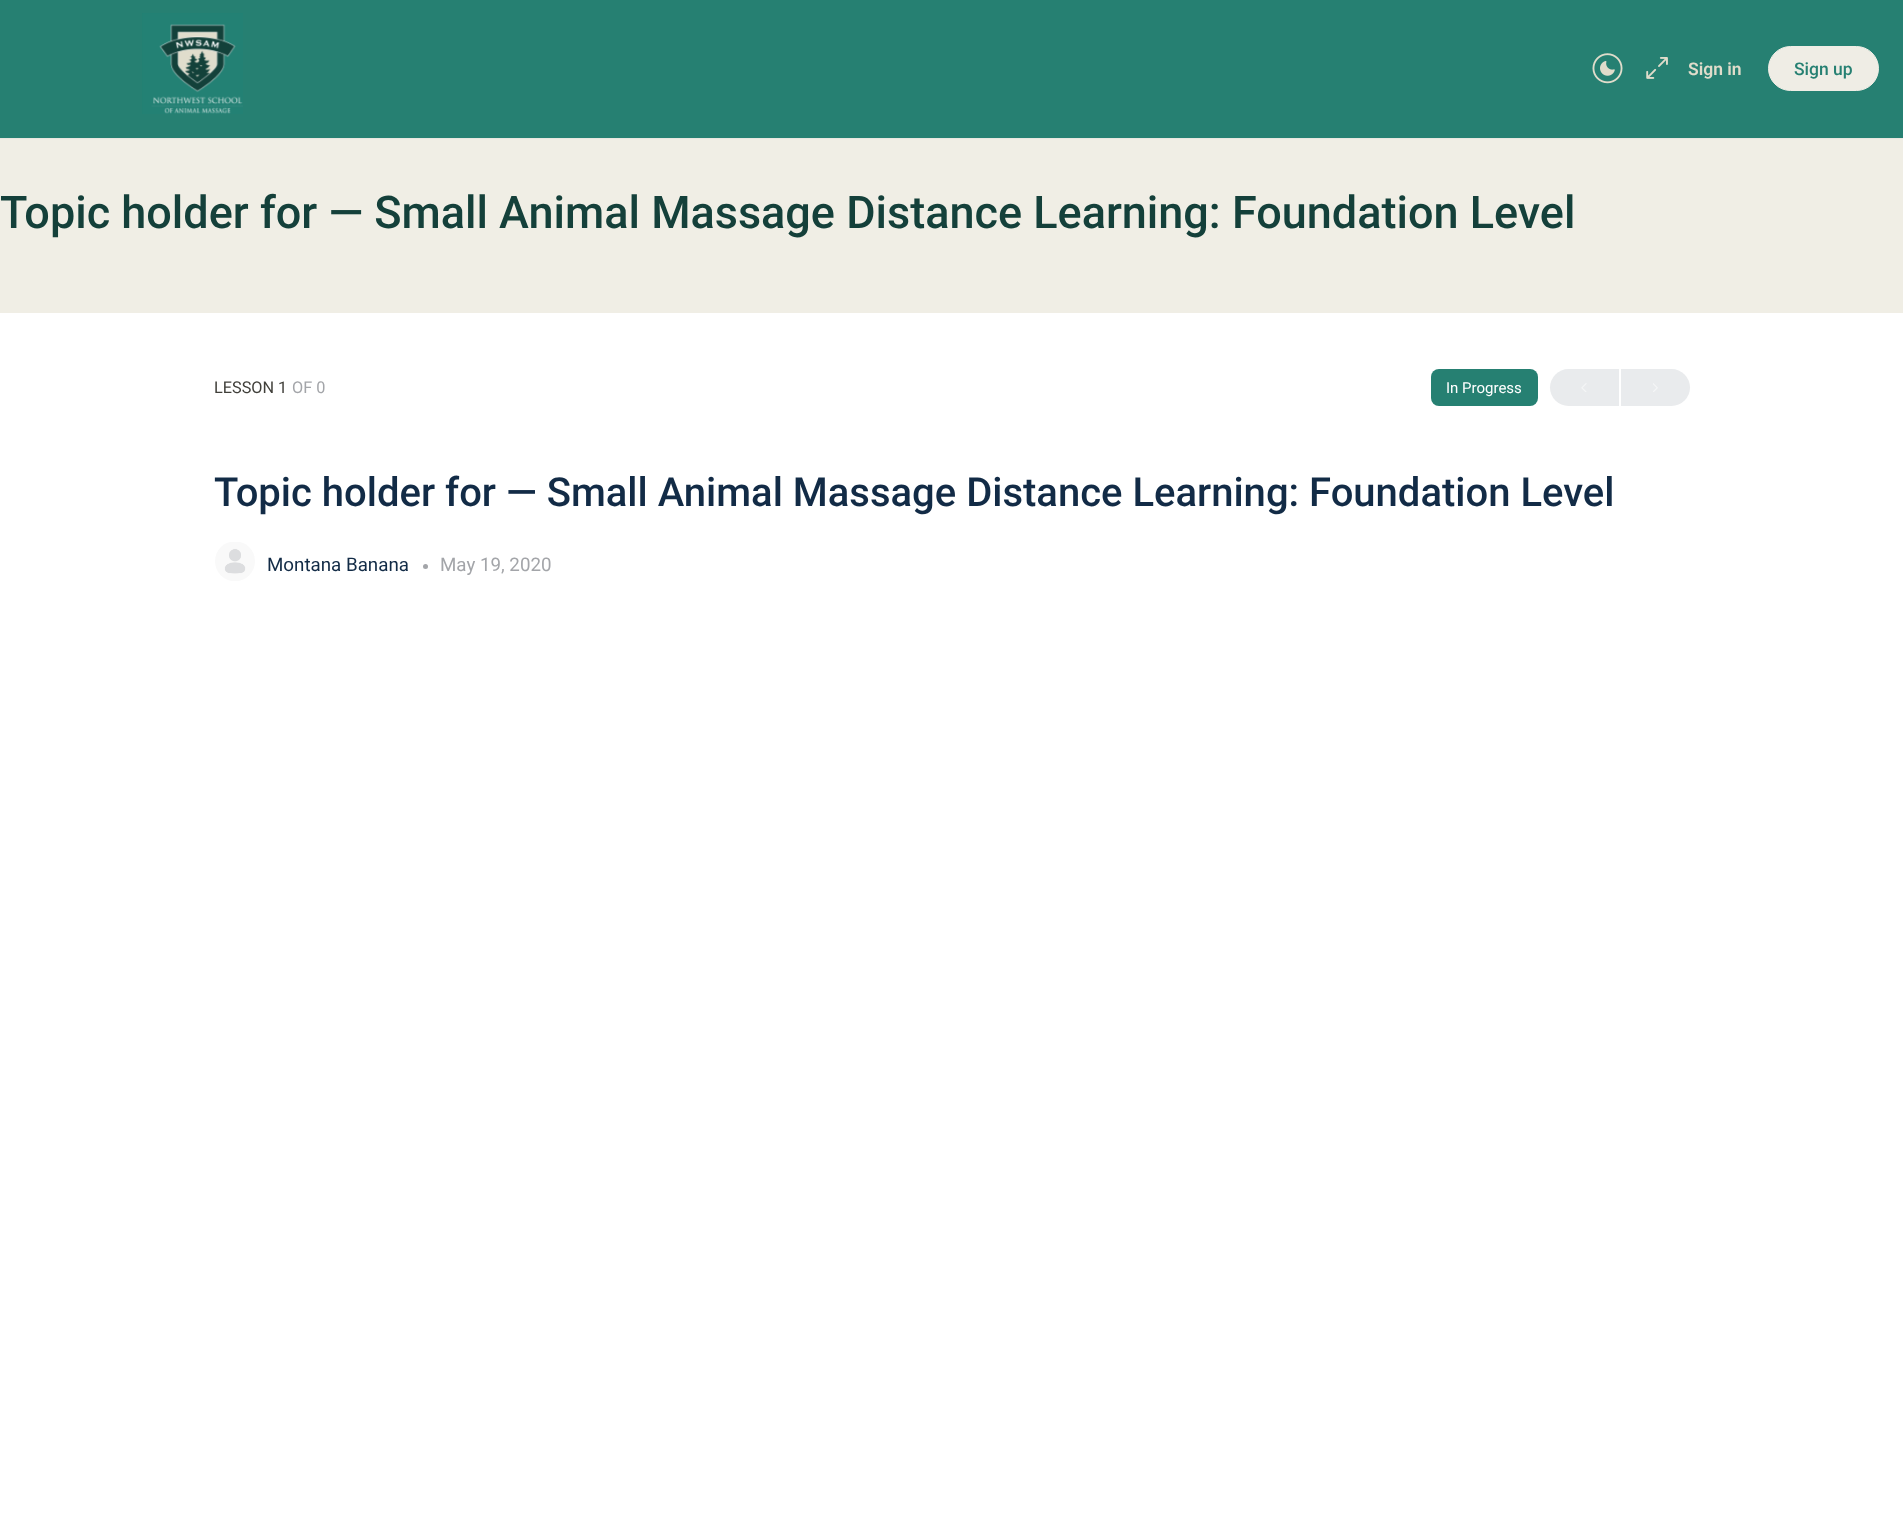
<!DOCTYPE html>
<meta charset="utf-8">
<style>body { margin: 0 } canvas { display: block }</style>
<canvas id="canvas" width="1903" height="1537"></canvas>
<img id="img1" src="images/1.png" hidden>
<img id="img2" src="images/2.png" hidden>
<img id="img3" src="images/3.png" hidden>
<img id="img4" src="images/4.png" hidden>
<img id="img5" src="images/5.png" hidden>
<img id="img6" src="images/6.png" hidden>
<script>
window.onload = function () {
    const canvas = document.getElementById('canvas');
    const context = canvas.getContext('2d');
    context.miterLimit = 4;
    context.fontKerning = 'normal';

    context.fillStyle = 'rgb(255, 255, 255)';
    context.fillRect(0, 0, 1903, 1537);
    context.fillStyle = 'rgb(232, 231, 224)';
    context.beginPath();
    context.moveTo(0, 138);
    context.lineTo(0, 139);
    context.lineTo(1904, 139);
    context.lineTo(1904, 1);
    context.lineTo(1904, 138);
    context.closePath();
    context.fill();
    context.fillStyle = 'rgb(38, 128, 114)';
    context.fillRect(0, 0, 1903, 138);
    context.drawImage(document.getElementById('img1'), 142, 13, 101, 101);
    context.drawImage(document.getElementById('img2'), 1592, 53, 31, 31);
    context.drawImage(document.getElementById('img3'), 1646, 57, 22, 22);
    context.fillStyle = 'rgb(239, 237, 229)';
    context.beginPath();
    context.roundRect(1768.5, 46.5, 110, 44, 22);
    context.fill();
    context.strokeStyle = 'rgb(239, 237, 229)';
    context.stroke();
    context.fillStyle = 'rgb(240, 238, 229)';
    context.fillRect(0, 139, 1903, 174);
    context.fillStyle = 'rgb(38, 128, 114)';
    context.beginPath();
    context.roundRect(1431, 369, 107, 37, 8);
    context.fill();
    context.fillStyle = 'rgb(233, 235, 237)';
    context.beginPath();
    context.roundRect(1550, 369, 69, 37, [18.5, 0, 0, 18.5]);
    context.fill();
    context.drawImage(document.getElementById('img4'), 1581, 383, 6, 9);
    context.beginPath();
    context.roundRect(1621, 369, 69, 37, [0, 18.5, 18.5, 0]);
    context.fill();
    context.drawImage(document.getElementById('img5'), 1653, 383, 5, 9);
    context.drawImage(document.getElementById('img6'), 215, 542, 40, 39);
    context.fillStyle = 'rgb(163, 165, 169)';
    context.beginPath();
    context.arc(425.5, 566.5, 2.5, 0, 2 * Math.PI);
    context.fill();
    context.font = '600 17.5px Roboto';
    context.fillStyle = 'rgb(224, 220, 203)';
    context.fillText('Sign in', 1688, 75);
    context.font = '500 17.5px Roboto';
    context.fillStyle = 'rgb(38, 128, 114)';
    context.fillText('Sign up', 1794, 75);
    context.font = '500 45px Roboto';
    context.fillStyle = 'rgb(20, 64, 58)';
    context.fillText('Topic holder for — Small Animal Massage Distance Learning: Foundation Level', 0, 228);
    context.font = '16.25px Roboto';
    context.fillStyle = 'rgb(64, 63, 58)';
    context.fillText('LESSON 1', 214, 393);
    context.fillStyle = 'rgb(163, 165, 169)';
    context.fillText('OF 0', 292, 393);
    context.font = '15px Roboto';
    context.fillStyle = 'rgb(255, 255, 255)';
    context.fillText('In Progress', 1446, 393);
    context.font = '500 40px Roboto';
    context.fillStyle = 'rgb(18, 43, 70)';
    context.fillText('Topic holder for — Small Animal Massage Distance Learning: Foundation Level', 214, 506);
    context.font = '18.75px Roboto';
    context.fillText('Montana Banana', 267, 571);
    context.fillStyle = 'rgb(163, 165, 169)';
    context.fillText('May 19, 2020', 440, 571);
};
</script>
